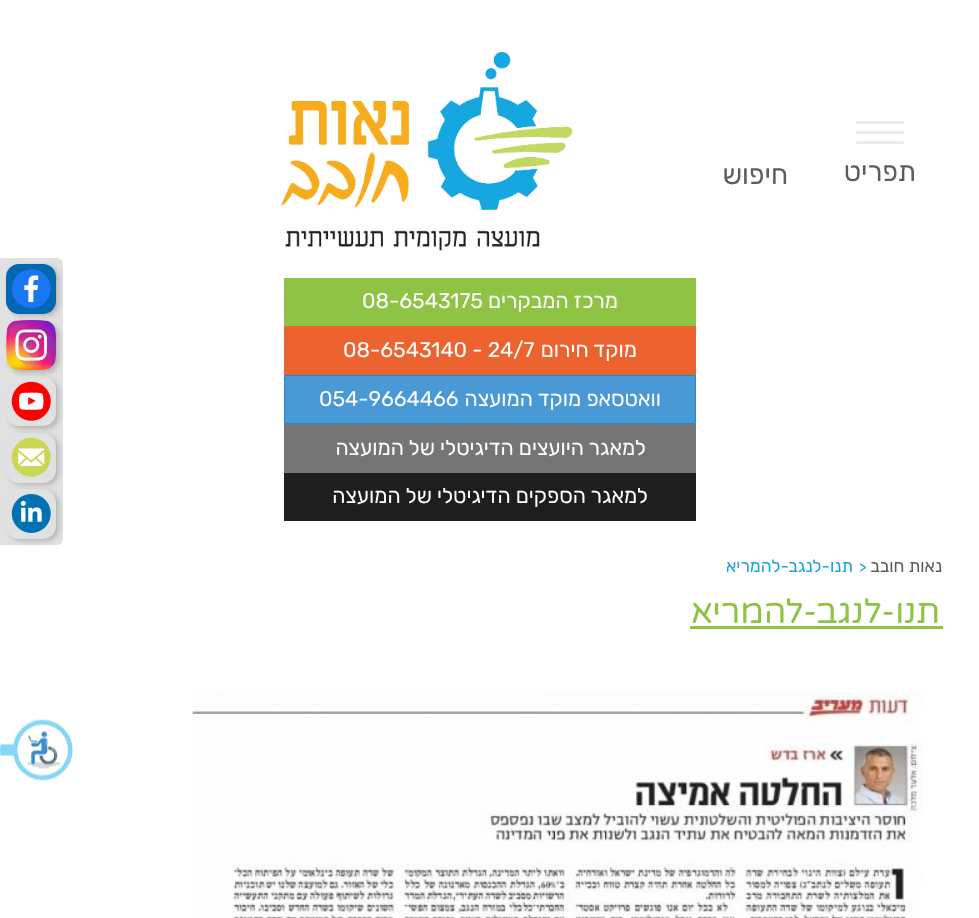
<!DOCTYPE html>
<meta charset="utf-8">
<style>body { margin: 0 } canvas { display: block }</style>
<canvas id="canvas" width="979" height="918"></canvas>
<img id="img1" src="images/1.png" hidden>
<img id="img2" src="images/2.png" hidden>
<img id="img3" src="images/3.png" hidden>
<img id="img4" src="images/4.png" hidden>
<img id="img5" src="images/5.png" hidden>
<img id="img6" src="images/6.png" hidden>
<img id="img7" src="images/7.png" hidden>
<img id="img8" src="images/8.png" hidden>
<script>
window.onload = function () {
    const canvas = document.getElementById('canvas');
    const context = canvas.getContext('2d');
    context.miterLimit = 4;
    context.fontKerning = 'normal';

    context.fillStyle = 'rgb(255, 255, 255)';
    context.fillRect(0, 0, 979, 918);
    context.fillStyle = 'rgb(235, 235, 235)';
    context.beginPath();
    context.roundRect(856, 121, 48, 3, 1.5);
    context.fill();
    context.beginPath();
    context.roundRect(856, 131, 48, 3, 1.5);
    context.fill();
    context.beginPath();
    context.roundRect(856, 141, 48, 3, 1.5);
    context.fill();
    context.drawImage(document.getElementById('img1'), 281, 51, 292, 200);
    context.fillStyle = 'rgb(143, 195, 67)';
    context.fillRect(284, 278, 412, 48);
    context.fillStyle = 'rgb(236, 99, 48)';
    context.fillRect(284, 326, 412, 49);
    context.fillStyle = 'rgb(73, 153, 214)';
    context.beginPath();
    context.rect(284.5, 375.5, 411, 48);
    context.fill();
    context.strokeStyle = 'rgb(36, 132, 206)';
    context.stroke();
    context.fillStyle = 'rgb(117, 117, 118)';
    context.fillRect(284, 424, 412, 49);
    context.fillStyle = 'rgb(30, 30, 30)';
    context.fillRect(284, 473, 412, 48);
    context.fillStyle = 'rgb(225, 225, 225)';
    context.beginPath();
    context.roundRect(0, 258, 63, 287, [0, 6, 6, 0]);
    context.fill();
    context.fillStyle = 'rgba(0, 0, 0, 0.19)';
    context.filter = 'blur(2.5px)';
    context.beginPath();
    context.roundRect(9, 266, 50, 50, 13);
    context.fill();
    context.filter = 'none';
    context.fillStyle = 'rgb(0, 103, 177)';
    context.beginPath();
    context.roundRect(6, 264, 50, 50, 13);
    context.fill();
    context.drawImage(document.getElementById('img2'), 11, 269, 40, 40);
    context.fillStyle = 'rgba(0, 0, 0, 0.19)';
    context.filter = 'blur(2.5px)';
    context.beginPath();
    context.roundRect(9, 323, 50, 50, 13);
    context.fill();
    context.filter = 'none';
    context.drawImage(document.getElementById('img3'), 6, 320, 50, 50);
    context.save();
    context.beginPath();
    context.moveTo(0, 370);
    context.lineTo(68, 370);
    context.lineTo(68, 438);
    context.lineTo(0, 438);
    context.closePath();
    context.moveTo(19, 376);
    context.lineTo(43, 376);
    context.bezierCurveTo(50, 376, 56, 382, 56, 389);
    context.lineTo(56, 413);
    context.bezierCurveTo(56, 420, 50, 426, 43, 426);
    context.lineTo(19, 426);
    context.bezierCurveTo(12, 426, 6, 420, 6, 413);
    context.lineTo(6, 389);
    context.bezierCurveTo(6, 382, 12, 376, 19, 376);
    context.closePath();
    context.clip('evenodd');
    context.filter = 'blur(2.5px)';
    context.beginPath();
    context.roundRect(9, 379, 50, 50, 13);
    context.fill();
    context.filter = 'none';
    context.restore();
    context.drawImage(document.getElementById('img4'), 11, 381, 40, 40);
    context.save();
    context.beginPath();
    context.moveTo(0, 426);
    context.lineTo(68, 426);
    context.lineTo(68, 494);
    context.lineTo(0, 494);
    context.closePath();
    context.moveTo(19, 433);
    context.lineTo(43, 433);
    context.bezierCurveTo(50, 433, 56, 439, 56, 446);
    context.lineTo(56, 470);
    context.bezierCurveTo(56, 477, 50, 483, 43, 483);
    context.lineTo(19, 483);
    context.bezierCurveTo(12, 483, 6, 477, 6, 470);
    context.lineTo(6, 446);
    context.bezierCurveTo(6, 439, 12, 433, 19, 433);
    context.closePath();
    context.clip('evenodd');
    context.filter = 'blur(2.5px)';
    context.beginPath();
    context.roundRect(9, 435, 50, 50, 13);
    context.fill();
    context.filter = 'none';
    context.restore();
    context.drawImage(document.getElementById('img5'), 11, 437, 40, 40);
    context.save();
    context.beginPath();
    context.moveTo(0, 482);
    context.lineTo(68, 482);
    context.lineTo(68, 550);
    context.lineTo(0, 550);
    context.closePath();
    context.moveTo(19, 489);
    context.lineTo(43, 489);
    context.bezierCurveTo(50, 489, 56, 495, 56, 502);
    context.lineTo(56, 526);
    context.bezierCurveTo(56, 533, 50, 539, 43, 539);
    context.lineTo(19, 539);
    context.bezierCurveTo(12, 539, 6, 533, 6, 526);
    context.lineTo(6, 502);
    context.bezierCurveTo(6, 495, 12, 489, 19, 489);
    context.closePath();
    context.clip('evenodd');
    context.filter = 'blur(2.5px)';
    context.beginPath();
    context.roundRect(9, 491, 50, 50, 13);
    context.fill();
    context.filter = 'none';
    context.restore();
    context.drawImage(document.getElementById('img6'), 11, 494, 40, 39);
    context.fillStyle = 'rgb(143, 195, 67)';
    context.fillRect(690, 626, 253, 3);
    context.drawImage(document.getElementById('img7'), 192, 691, 731, 227);
    context.drawImage(document.getElementById('img8'), 0, 719, 73, 62);
    context.direction = 'rtl';
    context.font = '300 27.5px Rubik';
    context.fillStyle = 'rgb(92, 92, 92)';
    context.fillText('תפריט', 916, 181);
    context.fillText('חיפוש', 788, 184);
    context.font = '300 21.25px Rubik';
    context.fillStyle = 'rgb(255, 255, 255)';
    context.fillText('מרכז המבקרים', 618, 308);
    context.direction = 'ltr';
    context.fillText('08-6543175', 362, 308);
    context.direction = 'rtl';
    context.fillText('מוקד חירום', 637, 357);
    context.direction = 'ltr';
    context.fillText('08-6543140 - 24/7', 343, 357);
    context.direction = 'rtl';
    context.fillText('וואטסאפ מוקד המועצה', 661, 406);
    context.direction = 'ltr';
    context.fillText('054-9664466', 319, 406);
    context.direction = 'rtl';
    context.fillText('למאגר היועצים הדיגיטלי של המועצה', 646, 455);
    context.fillText('למאגר הספקים הדיגיטלי של המועצה', 648, 503);
    context.font = '300 17.5px Rubik';
    context.fillStyle = 'rgb(92, 92, 92)';
    context.fillText('נאות חובב', 942, 572);
    context.direction = 'ltr';
    context.font = '300 15px Rubik';
    context.fillStyle = 'rgb(32, 162, 220)';
    context.fillText('>', 859, 572);
    context.direction = 'rtl';
    context.font = '300 17.5px Rubik';
    context.fillText('תנו-לנגב-להמריא', 853, 572);
    context.font = '34px Varela Round';
    context.fillStyle = 'rgb(143, 195, 67)';
    context.fillText('תנו-לנגב-להמריא', 940, 623);
};
</script>
